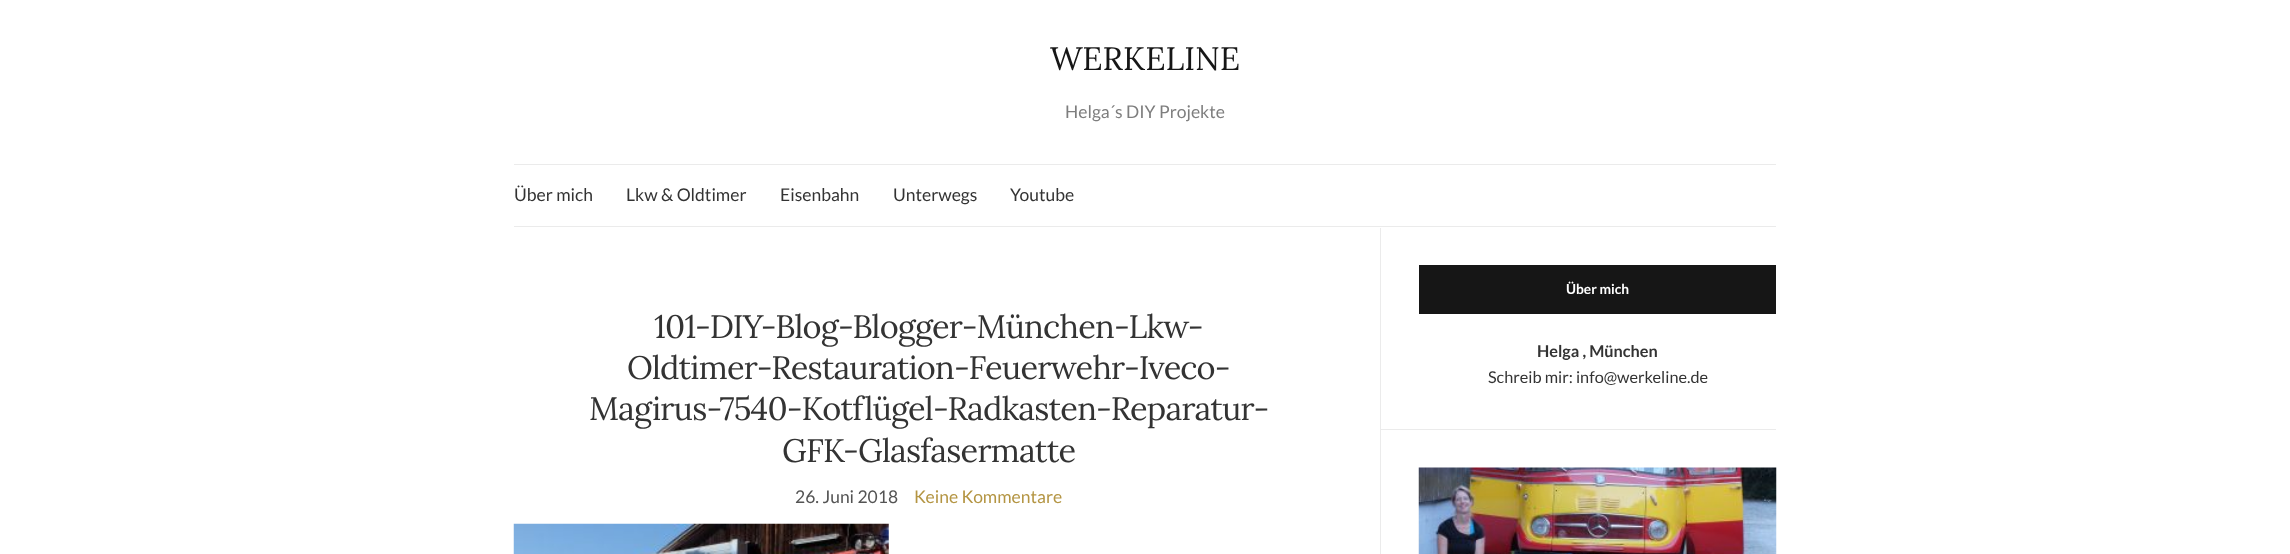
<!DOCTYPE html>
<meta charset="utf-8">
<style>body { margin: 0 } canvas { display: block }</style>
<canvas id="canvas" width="2290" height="554"></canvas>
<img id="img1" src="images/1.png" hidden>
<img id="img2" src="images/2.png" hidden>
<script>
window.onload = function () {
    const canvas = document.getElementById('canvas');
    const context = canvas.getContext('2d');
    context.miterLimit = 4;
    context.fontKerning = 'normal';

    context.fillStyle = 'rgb(255, 255, 255)';
    context.fillRect(0, 0, 2290, 554);
    context.fillStyle = 'rgb(235, 235, 235)';
    context.fillRect(514, 164, 1262, 1);
    context.fillRect(514, 226, 1262, 1);
    context.drawImage(document.getElementById('img1'), 513, 523, 376, 31);
    context.fillRect(1380, 228, 1, 326);
    context.fillRect(1381, 429, 395, 1);
    context.fillStyle = 'rgb(22, 22, 22)';
    context.fillRect(1419, 265, 357, 49);
    context.drawImage(document.getElementById('img2'), 1418, 467, 359, 87);
    context.font = '32.5px Lora';
    context.fillText('WERKELINE', 1050, 70);
    context.font = '17.5px Lato';
    context.fillStyle = 'rgb(126, 126, 126)';
    context.fillText('Helga´s DIY Projekte', 1065, 118);
    context.fillStyle = 'rgb(51, 51, 51)';
    context.fillText('Über mich', 514, 201);
    context.fillText('Lkw & Oldtimer', 626, 201);
    context.fillText('Eisenbahn', 780, 201);
    context.fillText('Unterwegs', 893, 201);
    context.fillText('Youtube', 1010, 201);
    context.letterSpacing = '-0.8px';
    context.font = '32.5px Lora';
    context.fillText('101-DIY-Blog-Blogger-München-Lkw-', 654, 338);
    context.fillText('Oldtimer-Restauration-Feuerwehr-Iveco-', 627, 379);
    context.fillText('Magirus-7540-Kotflügel-Radkasten-Reparatur-', 589, 420);
    context.fillText('GFK-Glasfasermatte', 782, 462);
    context.letterSpacing = '0px';
    context.font = '17.5px Lato';
    context.fillStyle = 'rgb(84, 84, 84)';
    context.fillText('26. Juni 2018', 795, 503);
    context.fillStyle = 'rgb(180, 149, 67)';
    context.fillText('Keine Kommentare', 914, 503);
    context.font = 'bold 13.75px Lato';
    context.fillStyle = 'rgb(255, 255, 255)';
    context.fillText('Über mich', 1566, 294);
    context.font = 'bold 16.25px Lato';
    context.fillStyle = 'rgb(51, 51, 51)';
    context.fillText('Helga , München', 1537, 357);
    context.font = '16.25px Lato';
    context.fillText('Schreib mir: info@werkeline.de', 1488, 383);
};
</script>
